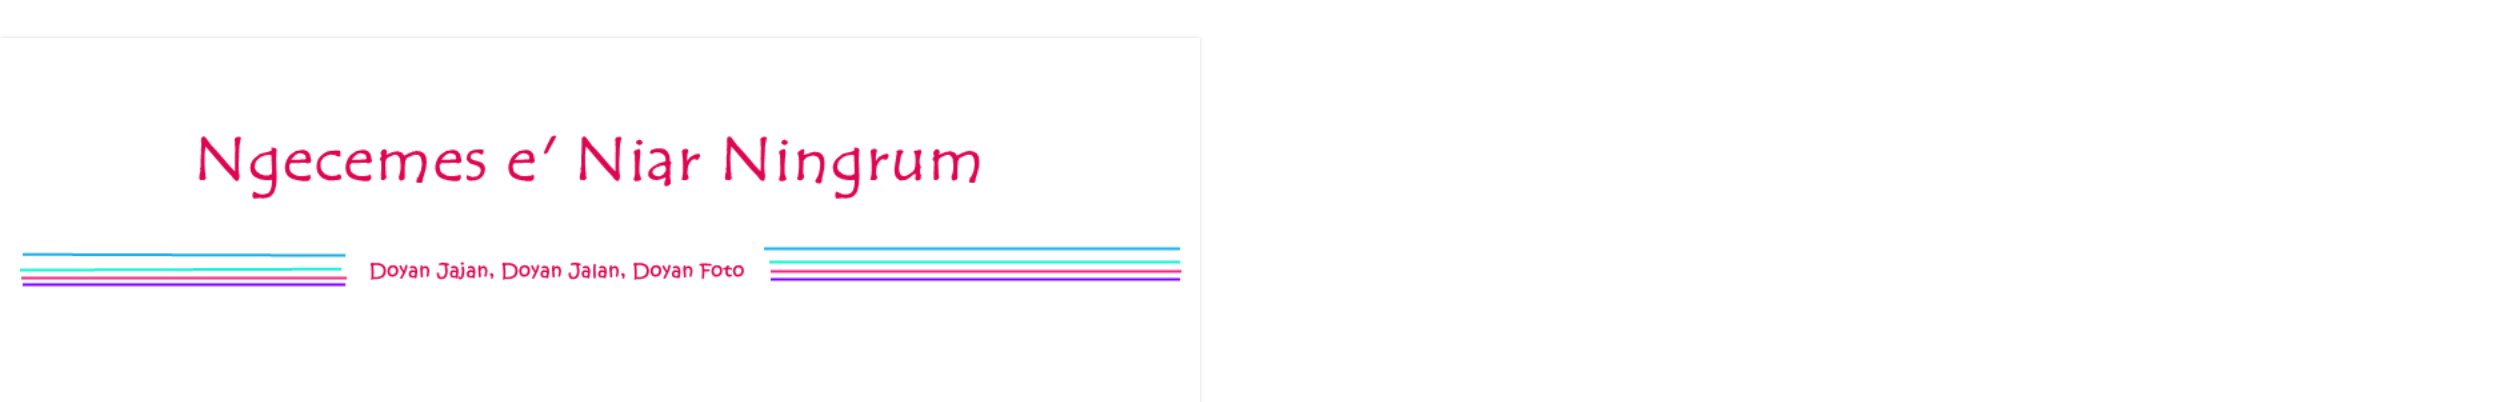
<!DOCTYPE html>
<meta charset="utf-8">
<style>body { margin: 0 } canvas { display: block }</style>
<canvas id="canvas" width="2514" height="402"></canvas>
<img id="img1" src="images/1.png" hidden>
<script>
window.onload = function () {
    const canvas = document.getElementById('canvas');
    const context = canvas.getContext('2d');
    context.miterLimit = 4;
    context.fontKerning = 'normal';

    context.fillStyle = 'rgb(255, 255, 255)';
    context.fillRect(0, 0, 2514, 402);
    context.save();
    context.beginPath();
    context.moveTo(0, 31);
    context.lineTo(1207, 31);
    context.lineTo(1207, 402);
    context.lineTo(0, 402);
    context.closePath();
    context.moveTo(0, 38);
    context.lineTo(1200, 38);
    context.lineTo(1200, 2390);
    context.lineTo(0, 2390);
    context.closePath();
    context.clip('evenodd');
    context.fillStyle = 'rgba(0, 0, 0, 0.15)';
    context.filter = 'blur(2px)';
    context.beginPath();
    context.rect(0, 38, 1200, 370);
    context.fill();
    context.filter = 'none';
    context.restore();
    context.drawImage(document.getElementById('img1'), 19, 134, 1164, 153);
};
</script>
